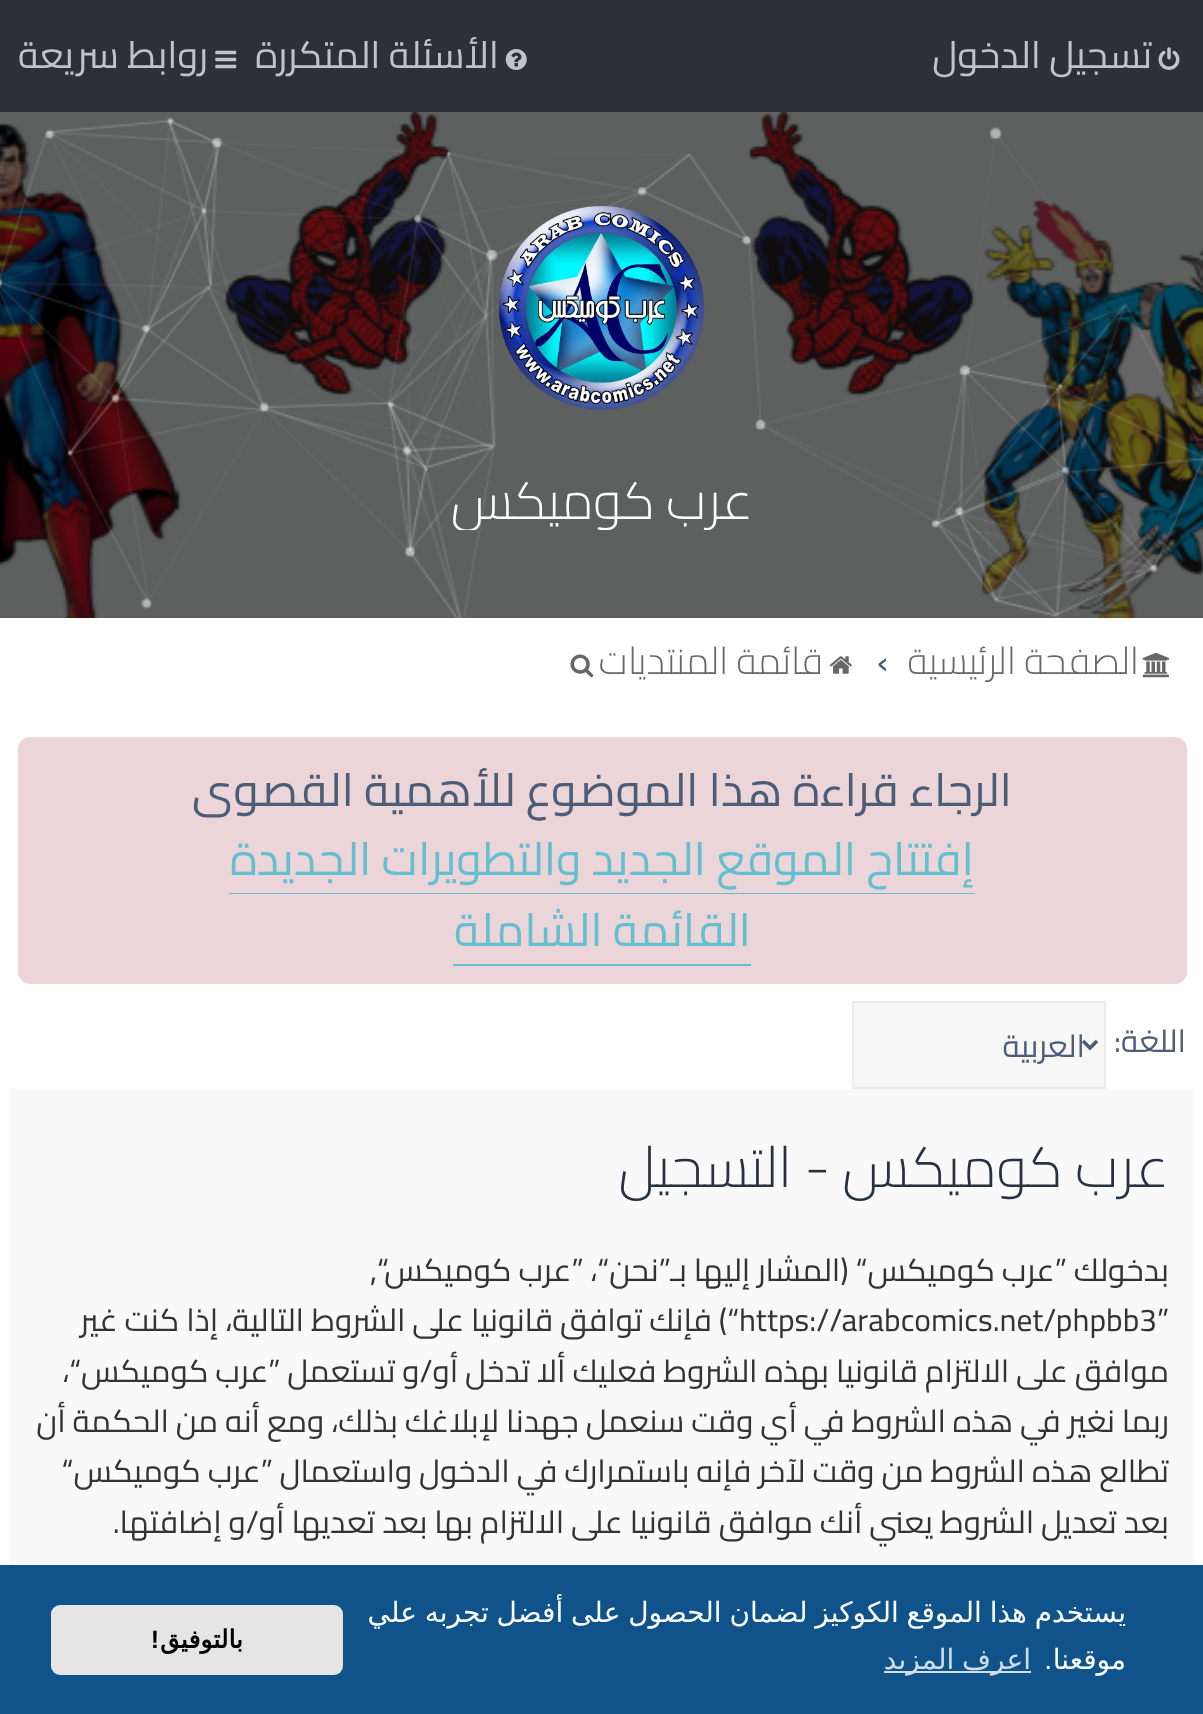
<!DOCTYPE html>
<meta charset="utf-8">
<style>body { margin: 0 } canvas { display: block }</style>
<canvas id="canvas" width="1203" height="1714"></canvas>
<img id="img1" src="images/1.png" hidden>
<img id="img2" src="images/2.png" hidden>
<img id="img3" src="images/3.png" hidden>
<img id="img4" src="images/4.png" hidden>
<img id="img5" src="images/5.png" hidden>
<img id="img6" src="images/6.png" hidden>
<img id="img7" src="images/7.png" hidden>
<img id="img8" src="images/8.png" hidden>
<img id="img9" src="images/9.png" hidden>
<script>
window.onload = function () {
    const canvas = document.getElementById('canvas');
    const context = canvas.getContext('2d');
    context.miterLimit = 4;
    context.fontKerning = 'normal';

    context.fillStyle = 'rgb(94, 96, 96)';
    context.fillRect(0, 0, 1203, 1714);
    context.fillStyle = 'rgb(45, 48, 57)';
    context.fillRect(0, 0, 1203, 112);
    context.drawImage(document.getElementById('img1'), 1158, 47, 22, 23);
    context.drawImage(document.getElementById('img2'), 505, 49, 22, 21);
    context.drawImage(document.getElementById('img3'), 215, 50, 22, 19);
    context.drawImage(document.getElementById('img4'), 0, 112, 1203, 506);
    context.drawImage(document.getElementById('img5'), 0, 117, 1203, 501);
    context.drawImage(document.getElementById('img6'), 498, 206, 207, 204);
    context.fillStyle = 'rgb(255, 255, 255)';
    context.fillRect(0, 618, 1203, 947);
    context.drawImage(document.getElementById('img7'), 1142, 652, 27, 26);
    context.drawImage(document.getElementById('img8'), 829, 656, 23, 18);
    context.drawImage(document.getElementById('img9'), 570, 654, 24, 24);
    context.fillStyle = 'rgb(236, 213, 216)';
    context.beginPath();
    context.roundRect(18, 737, 1169, 247, 12);
    context.fill();
    context.fillStyle = 'rgb(100, 191, 208)';
    context.fillRect(229, 893, 746, 1);
    context.fillRect(453, 964, 298, 2);
    context.fillStyle = 'rgb(247, 247, 247)';
    context.beginPath();
    context.rect(853, 1002, 252, 86);
    context.fill();
    context.strokeStyle = 'rgb(237, 236, 236)';
    context.lineWidth = 2;
    context.stroke();
    context.beginPath();
    context.moveTo(1083, 1041);
    context.lineTo(1090, 1048);
    context.lineTo(1097, 1041);
    context.strokeStyle = 'rgb(76, 93, 119)';
    context.lineWidth = 3.5;
    context.stroke();
    context.fillStyle = 'rgb(249, 249, 249)';
    context.fillRect(9, 1089, 1186, 476);
    context.fillStyle = 'rgb(15, 83, 138)';
    context.fillRect(0, 1565, 1203, 149);
    context.fillStyle = 'rgb(207, 221, 232)';
    context.fillRect(884, 1671, 147, 2);
    context.fillStyle = 'rgb(229, 229, 229)';
    context.beginPath();
    context.roundRect(51, 1605, 292, 70, 9);
    context.fill();
    context.direction = 'rtl';
    context.font = '37.75px Cairo';
    context.fillStyle = 'rgb(190, 196, 201)';
    context.fillText('تسجيل الدخول', 1152, 68);
    context.fillText('الأسئلة المتكررة', 499, 68);
    context.fillText('روابط سريعة', 208, 68);
    context.save();
    context.beginPath();
    context.rect(0, 467, 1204, 63);
    context.clip();
    context.font = '300 52.5px Cairo';
    context.fillStyle = 'rgb(255, 255, 255)';
    context.fillText('عرب كوميكس', 753, 519);
    context.restore();
    context.font = '300 37.75px Cairo';
    context.fillStyle = 'rgb(103, 103, 103)';
    context.fillText('الصفحة الرئيسية', 1139, 674);
    context.direction = 'ltr';
    context.font = '37.75px Cairo';
    context.fillStyle = 'rgb(76, 93, 119)';
    context.fillText('‹', 877, 674);
    context.direction = 'rtl';
    context.font = '300 37.75px Cairo';
    context.fillStyle = 'rgb(103, 103, 103)';
    context.fillText('قائمة المنتديات', 823, 674);
    context.font = '46.1px Cairo';
    context.fillStyle = 'rgb(76, 93, 119)';
    context.fillText('الرجاء قراءة هذا الموضوع للأهمية القصوى', 1012, 806);
    context.fillStyle = 'rgb(100, 191, 208)';
    context.fillText('إفتتاح الموقع الجديد والتطويرات الجديدة', 974, 875);
    context.fillText('القائمة الشاملة', 751, 946);
    context.font = '31.5px Cairo';
    context.fillStyle = 'rgb(76, 93, 119)';
    context.fillText('اللغة:', 1186, 1052);
    context.fillText('العربية', 1085, 1057);
    context.font = '300 56.75px Cairo';
    context.fillStyle = 'rgb(40, 49, 63)';
    context.fillText('عرب كوميكس - التسجيل', 1169, 1187);
    context.font = '31.5px Cairo';
    context.fillStyle = 'rgb(51, 51, 51)';
    context.fillText('بدخولك ”عرب كوميكس“ (المشار إليها بـ”نحن“، ”عرب كوميكس“,', 1169, 1281);
    context.direction = 'ltr';
    context.fillText('https://arabcomics.net/phpbb3”', 739, 1331);
    context.direction = 'rtl';
    context.fillText('“) فإنك توافق قانونيا على الشروط التالية، إذا كنت غير', 739, 1331);
    context.fillText('موافق على الالتزام قانونيا بهذه الشروط فعليك ألا تدخل أو/و تستعمل ”عرب كوميكس“،', 1169, 1382);
    context.fillText('ربما نغير في هذه الشروط في أي وقت سنعمل جهدنا لإبلاغك بذلك، ومع أنه من الحكمة أن', 1169, 1432);
    context.fillText('تطالع هذه الشروط من وقت لآخر فإنه باستمرارك في الدخول واستعمال ”عرب كوميكس“', 1169, 1482);
    context.fillText('بعد تعديل الشروط يعني أنك موافق قانونيا على الالتزام بها بعد تعديها أو/و إضافتها.', 1169, 1533);
    context.wordSpacing = '-1.1px';
    context.font = '28px DejaVu Sans';
    context.fillStyle = 'rgb(255, 255, 255)';
    context.fillText('يستخدم هذا الموقع الكوكيز لضمان الحصول على أفضل تجربه علي', 1126, 1622);
    context.wordSpacing = '0px';
    context.fillText('موقعنا', 1126, 1669);
    context.font = '28px Liberation Sans';
    context.fillText('.', 1052, 1669);
    context.wordSpacing = '-1.1px';
    context.font = '28px DejaVu Sans';
    context.fillStyle = 'rgb(207, 221, 232)';
    context.fillText('اعرف المزيد', 1031, 1669);
    context.wordSpacing = '0px';
    context.font = 'bold 25px DejaVu Sans';
    context.fillStyle = 'rgb(0, 0, 0)';
    context.fillText('بالتوفيق', 243, 1648);
    context.font = 'bold 25px Liberation Sans';
    context.fillText('!', 159, 1648);
};
</script>
